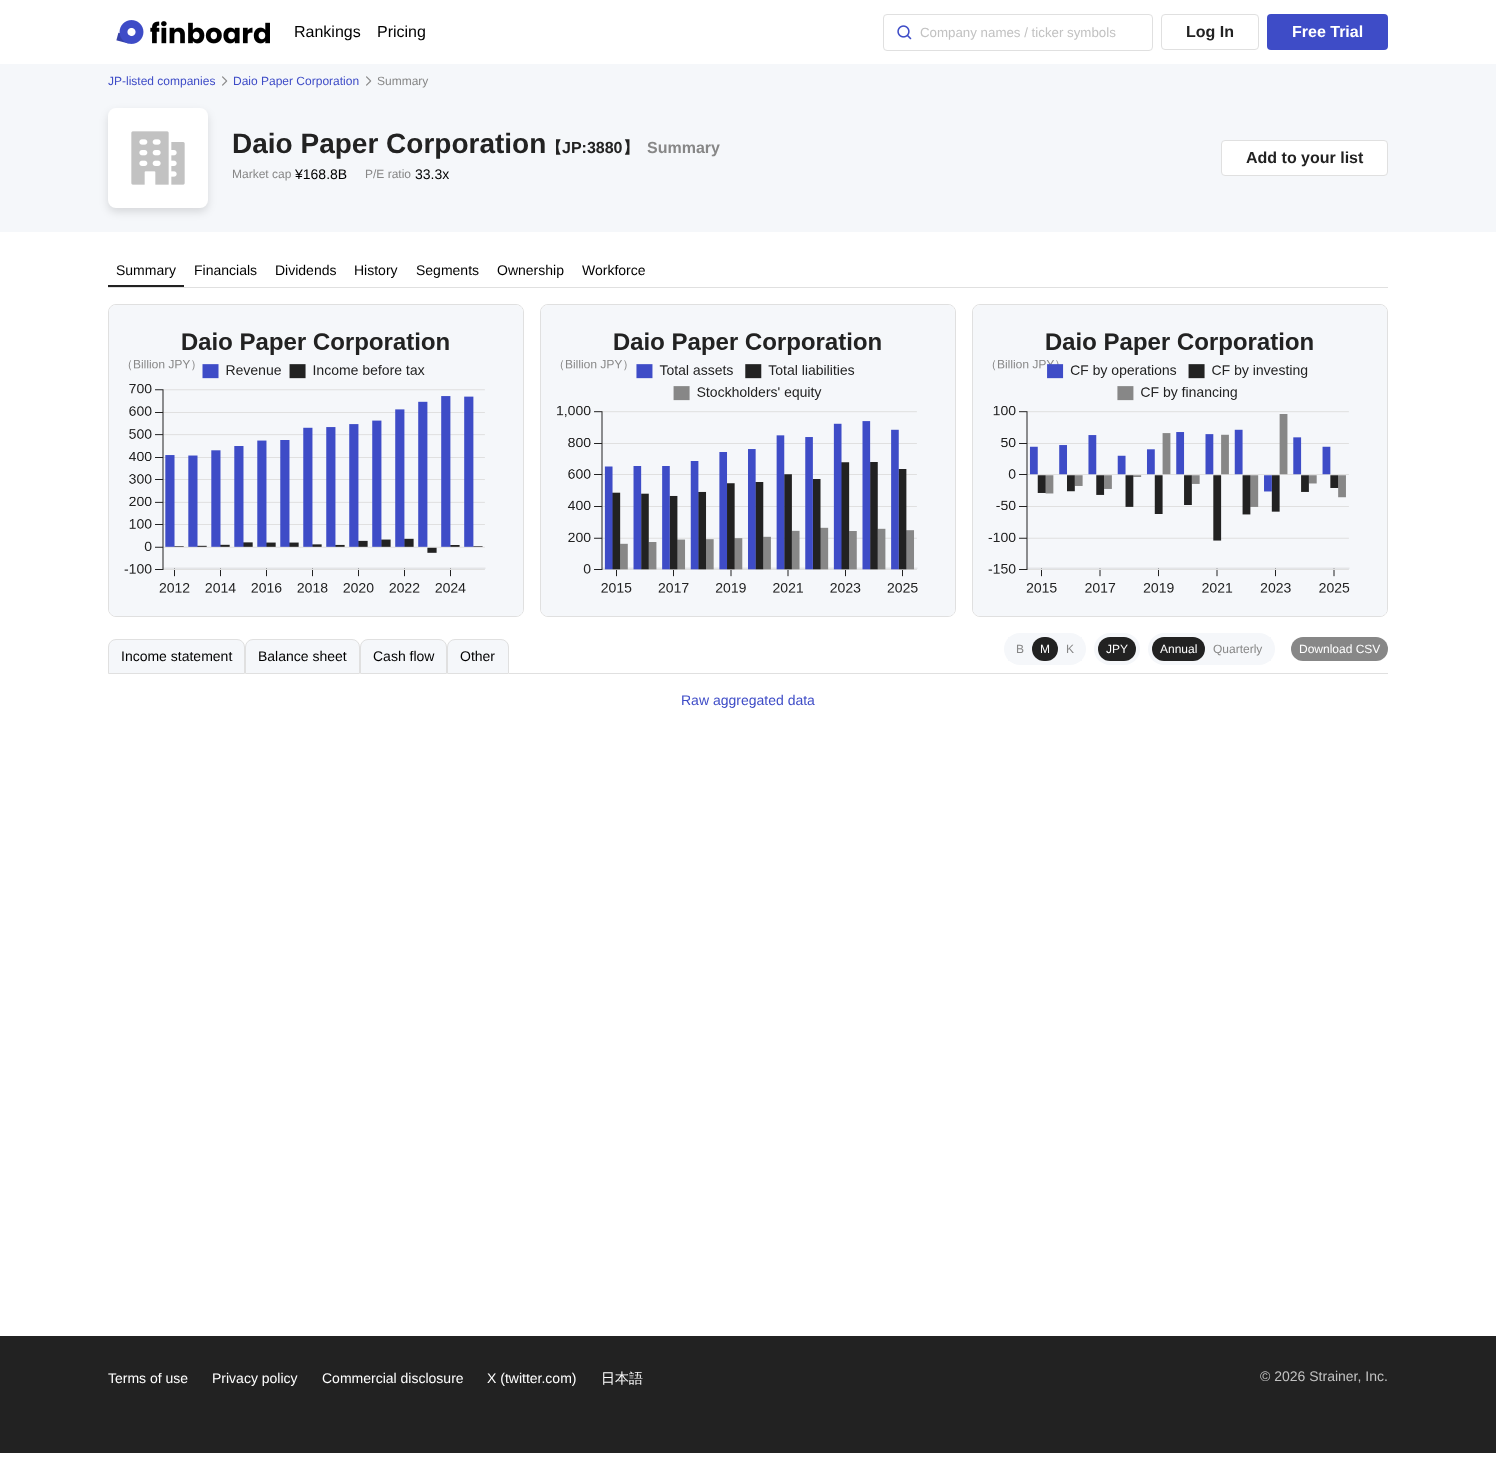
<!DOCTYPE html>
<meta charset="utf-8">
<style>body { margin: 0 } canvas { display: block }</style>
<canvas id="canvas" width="1496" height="1484"></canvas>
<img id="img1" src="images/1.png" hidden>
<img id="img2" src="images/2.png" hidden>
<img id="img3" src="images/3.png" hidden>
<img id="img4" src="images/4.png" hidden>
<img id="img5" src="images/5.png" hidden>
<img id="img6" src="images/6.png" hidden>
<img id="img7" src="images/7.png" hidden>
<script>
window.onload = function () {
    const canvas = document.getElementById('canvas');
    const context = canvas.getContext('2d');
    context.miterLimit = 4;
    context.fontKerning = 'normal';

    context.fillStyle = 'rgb(255, 255, 255)';
    context.fillRect(0, 0, 1496, 1484);
    context.drawImage(document.getElementById('img1'), 116, 20, 154, 24);
    context.beginPath();
    context.roundRect(883.5, 14.5, 269, 36, 3.5);
    context.strokeStyle = 'rgb(224, 224, 224)';
    context.stroke();
    context.drawImage(document.getElementById('img2'), 897, 25, 15, 15);
    context.beginPath();
    context.roundRect(1161.5, 14.5, 97, 35, 3.5);
    context.stroke();
    context.fillStyle = 'rgb(62, 76, 199)';
    context.beginPath();
    context.roundRect(1267, 14, 121, 36, 4);
    context.fill();
    context.fillStyle = 'rgb(245, 247, 250)';
    context.fillRect(0, 64, 1496, 168);
    context.drawImage(document.getElementById('img3'), 222, 76, 6, 10);
    context.drawImage(document.getElementById('img3'), 366, 76, 6, 10);
    context.fillStyle = 'rgba(0, 0, 0, 0.12)';
    context.filter = 'blur(4px)';
    context.beginPath();
    context.roundRect(108, 112, 100, 100, 8);
    context.fill();
    context.filter = 'none';
    context.fillStyle = 'rgb(255, 255, 255)';
    context.beginPath();
    context.roundRect(108, 108, 100, 100, 8);
    context.fill();
    context.drawImage(document.getElementById('img4'), 131, 131, 54, 54);
    context.beginPath();
    context.roundRect(1221.5, 140.5, 166, 35, 3.5);
    context.fill();
    context.stroke();
    context.fillStyle = 'rgb(224, 224, 224)';
    context.fillRect(108, 287, 1280, 1);
    context.fillStyle = 'rgb(34, 34, 34)';
    context.fillRect(108, 285, 76, 2);
    context.beginPath();
    context.roundRect(108.5, 304.5, 415, 312, 7.5);
    context.stroke();
    context.fillStyle = 'rgb(245, 247, 250)';
    context.beginPath();
    context.roundRect(109, 305, 414, 311, 7);
    context.fill();
    context.drawImage(document.getElementById('img5'), 124, 307, 398, 307);
    context.beginPath();
    context.roundRect(540.5, 304.5, 415, 312, 7.5);
    context.stroke();
    context.beginPath();
    context.roundRect(541, 305, 414, 311, 7);
    context.fill();
    context.drawImage(document.getElementById('img6'), 557, 307, 397, 307);
    context.beginPath();
    context.roundRect(972.5, 304.5, 415, 312, 7.5);
    context.stroke();
    context.beginPath();
    context.roundRect(973, 305, 414, 311, 7);
    context.fill();
    context.drawImage(document.getElementById('img7'), 988, 307, 398, 307);
    context.beginPath();
    context.roundRect(108.5, 639.5, 136, 34, [7.5, 7.5, 0, 0]);
    context.fill();
    context.stroke();
    context.beginPath();
    context.roundRect(245.5, 639.5, 114, 34, [7.5, 7.5, 0, 0]);
    context.fill();
    context.stroke();
    context.beginPath();
    context.roundRect(360.5, 639.5, 86, 34, [7.5, 7.5, 0, 0]);
    context.fill();
    context.stroke();
    context.beginPath();
    context.roundRect(447.5, 639.5, 61, 34, [7.5, 7.5, 0, 0]);
    context.fill();
    context.stroke();
    context.fillStyle = 'rgb(224, 224, 224)';
    context.fillRect(509, 673, 879, 1);
    context.fillStyle = 'rgb(245, 247, 250)';
    context.beginPath();
    context.roundRect(1004, 633, 82, 32, 16);
    context.fill();
    context.fillRect(1008, 637, 1, 24);
    context.fillStyle = 'rgb(34, 34, 34)';
    context.beginPath();
    context.roundRect(1032, 637, 26, 24, 12);
    context.fill();
    context.fillStyle = 'rgb(245, 247, 250)';
    context.fillRect(1081, 637, 1, 24);
    context.beginPath();
    context.roundRect(1094, 633, 46, 32, 16);
    context.fill();
    context.fillStyle = 'rgb(34, 34, 34)';
    context.beginPath();
    context.roundRect(1098, 637, 38, 24, 12);
    context.fill();
    context.fillStyle = 'rgb(245, 247, 250)';
    context.beginPath();
    context.roundRect(1148, 633, 127, 32, 16);
    context.fill();
    context.fillStyle = 'rgb(34, 34, 34)';
    context.beginPath();
    context.roundRect(1152, 637, 53, 24, 12);
    context.fill();
    context.fillStyle = 'rgb(245, 247, 250)';
    context.fillRect(1270, 637, 1, 24);
    context.fillStyle = 'rgb(135, 135, 135)';
    context.beginPath();
    context.roundRect(1291, 637, 97, 24, 12);
    context.fill();
    context.fillStyle = 'rgb(34, 34, 34)';
    context.fillRect(0, 1336, 1496, 117);
    context.font = '16px Liberation Sans';
    context.fillStyle = 'rgb(0, 0, 0)';
    context.fillText('Rankings', 294, 37);
    context.fillText('Pricing', 377, 37);
    context.font = '13.3px Liberation Sans';
    context.fillStyle = 'rgb(194, 194, 194)';
    context.fillText('Company names / ticker symbols', 920, 37);
    context.font = 'bold 16px Liberation Sans';
    context.fillStyle = 'rgb(34, 34, 34)';
    context.fillText('Log In', 1186, 37);
    context.fillStyle = 'rgb(255, 255, 255)';
    context.fillText('Free Trial', 1292, 37);
    context.font = '12px Liberation Sans';
    context.fillStyle = 'rgb(62, 76, 199)';
    context.fillText('JP-listed companies', 108, 85);
    context.fillText('Daio Paper Corporation', 233, 85);
    context.fillStyle = 'rgb(135, 135, 135)';
    context.fillText('Summary', 377, 85);
    context.font = 'bold 28px Liberation Sans';
    context.fillStyle = 'rgb(34, 34, 34)';
    context.fillText('Daio Paper Corporation', 232, 153);
    context.font = 'bold 16px WenQuanYi Zen Hei';
    context.fillText('【', 546, 153);
    context.font = 'bold 16px Liberation Sans';
    context.fillText('JP:3880', 562, 153);
    context.font = 'bold 16px WenQuanYi Zen Hei';
    context.fillText('】', 623, 153);
    context.font = 'bold 16px Liberation Sans';
    context.fillStyle = 'rgb(135, 135, 135)';
    context.fillText('Summary', 647, 153);
    context.font = '12px Liberation Sans';
    context.fillText('Market cap', 232, 178);
    context.font = '14px Liberation Sans';
    context.fillStyle = 'rgb(0, 0, 0)';
    context.fillText('¥168.8B', 295, 179);
    context.font = '12px Liberation Sans';
    context.fillStyle = 'rgb(135, 135, 135)';
    context.fillText('P/E ratio', 365, 178);
    context.font = '14px Liberation Sans';
    context.fillStyle = 'rgb(0, 0, 0)';
    context.fillText('33.3x', 415, 179);
    context.font = 'bold 16px Liberation Sans';
    context.fillStyle = 'rgb(34, 34, 34)';
    context.fillText('Add to your list', 1246, 163);
    context.font = '14px Liberation Sans';
    context.fillStyle = 'rgb(0, 0, 0)';
    context.fillText('Summary', 116, 275);
    context.fillText('Financials', 194, 275);
    context.fillText('Dividends', 275, 275);
    context.fillText('History', 354, 275);
    context.fillText('Segments', 416, 275);
    context.fillText('Ownership', 497, 275);
    context.fillText('Workforce', 582, 275);
    context.fillText('Income statement', 121, 661);
    context.fillText('Balance sheet', 258, 661);
    context.fillText('Cash flow', 373, 661);
    context.fillText('Other', 460, 661);
    context.font = '12px Liberation Sans';
    context.fillStyle = 'rgb(135, 135, 135)';
    context.fillText('B', 1016, 653);
    context.fillStyle = 'rgb(255, 255, 255)';
    context.fillText('M', 1040, 653);
    context.fillStyle = 'rgb(135, 135, 135)';
    context.fillText('K', 1066, 653);
    context.fillStyle = 'rgb(255, 255, 255)';
    context.fillText('JPY', 1106, 653);
    context.fillText('Annual', 1160, 653);
    context.fillStyle = 'rgb(135, 135, 135)';
    context.fillText('Quarterly', 1213, 653);
    context.fillStyle = 'rgb(255, 255, 255)';
    context.fillText('Download CSV', 1299, 653);
    context.font = '14px Liberation Sans';
    context.fillStyle = 'rgb(62, 76, 199)';
    context.fillText('Raw aggregated data', 681, 705);
    context.fillStyle = 'rgb(255, 255, 255)';
    context.fillText('Terms of use', 108, 1383);
    context.fillText('Privacy policy', 212, 1383);
    context.fillText('Commercial disclosure', 322, 1383);
    context.fillText('X (twitter.com)', 487, 1383);
    context.font = '500 14px WenQuanYi Zen Hei';
    context.fillText('日本語', 601, 1383);
    context.font = '14px Liberation Sans';
    context.fillStyle = 'rgb(194, 194, 194)';
    context.fillText('© 2026 Strainer, Inc.', 1260, 1381);
};
</script>
